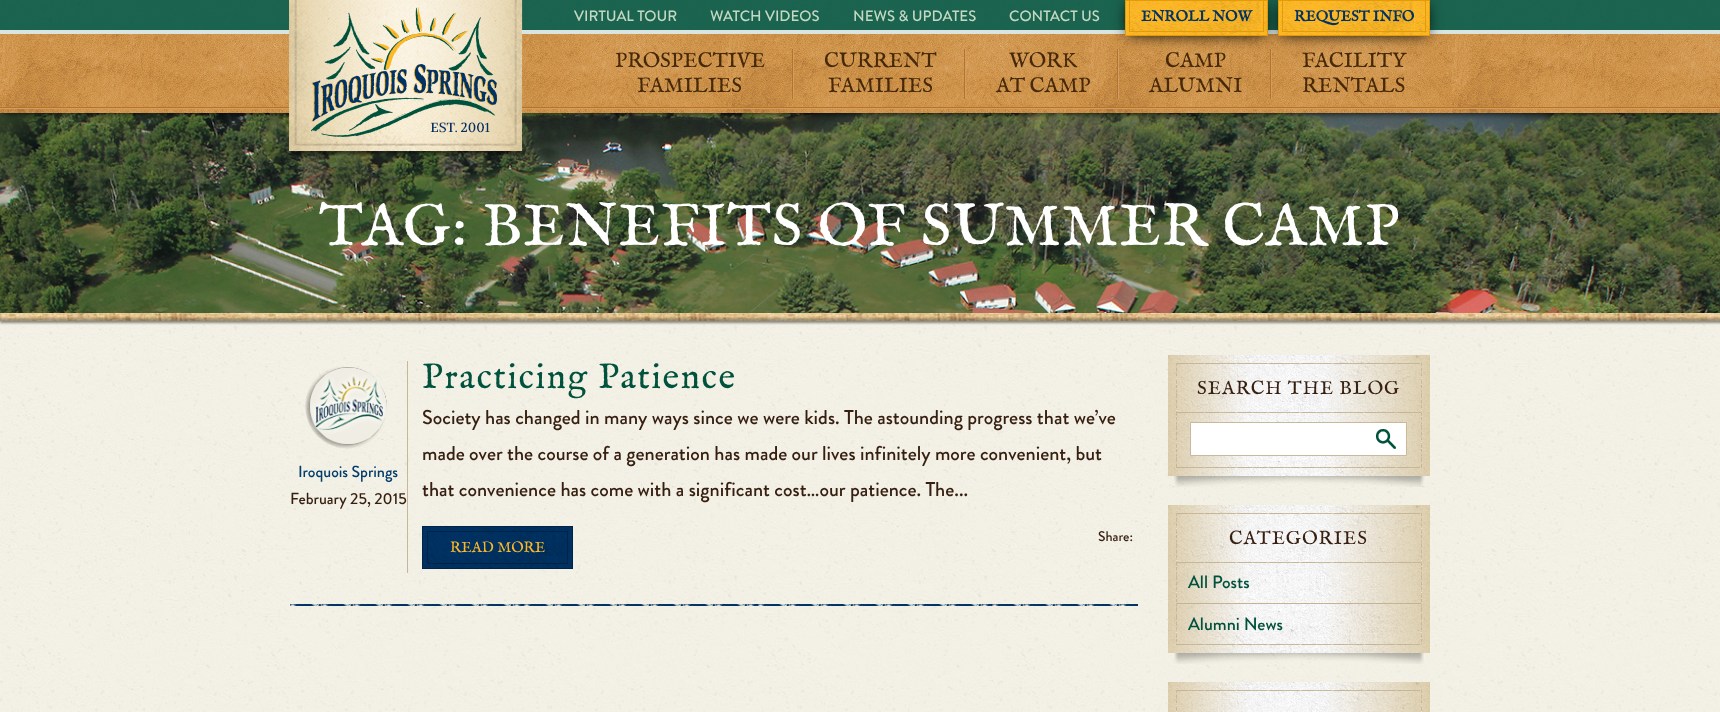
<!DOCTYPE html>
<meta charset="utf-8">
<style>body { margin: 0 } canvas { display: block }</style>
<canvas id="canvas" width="1720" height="712"></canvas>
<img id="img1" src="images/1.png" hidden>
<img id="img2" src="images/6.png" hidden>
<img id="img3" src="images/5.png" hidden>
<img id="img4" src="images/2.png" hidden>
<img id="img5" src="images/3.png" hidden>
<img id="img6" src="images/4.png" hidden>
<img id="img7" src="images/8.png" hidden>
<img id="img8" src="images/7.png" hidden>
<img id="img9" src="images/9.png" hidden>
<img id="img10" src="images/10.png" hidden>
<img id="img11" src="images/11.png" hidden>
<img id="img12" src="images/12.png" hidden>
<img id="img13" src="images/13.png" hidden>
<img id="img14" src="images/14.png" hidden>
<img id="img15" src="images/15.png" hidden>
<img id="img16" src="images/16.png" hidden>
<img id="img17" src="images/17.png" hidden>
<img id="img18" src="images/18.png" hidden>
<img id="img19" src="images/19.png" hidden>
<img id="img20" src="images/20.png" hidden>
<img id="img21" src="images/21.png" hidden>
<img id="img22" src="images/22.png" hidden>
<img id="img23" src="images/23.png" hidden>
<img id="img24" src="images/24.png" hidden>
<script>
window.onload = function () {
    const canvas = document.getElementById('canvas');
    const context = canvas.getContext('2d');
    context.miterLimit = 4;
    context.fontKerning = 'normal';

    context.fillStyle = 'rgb(255, 255, 255)';
    context.fillRect(0, 0, 1720, 712);
    context.drawImage(document.getElementById('img1'), 0, 0, 1720, 30);
    context.fillStyle = 'rgba(0, 82, 61, 0.89)';
    context.fillRect(0, 0, 1720, 30);
    context.fillStyle = 'rgb(218, 229, 226)';
    context.fillRect(0, 30, 1720, 4);
    context.fillStyle = 'rgb(51, 67, 41)';
    context.fillRect(0, 113, 1720, 200);
    context.drawImage(document.getElementById('img2'), 0, 113, 1720, 200);
    context.fillStyle = 'rgb(0, 0, 0)';
    context.filter = 'blur(3.5px)';
    context.beginPath();
    context.rect(4, 42, 1712, 71);
    context.fill();
    context.filter = 'none';
    context.drawImage(document.getElementById('img3'), 0, 34, 1720, 79);
    context.fillStyle = 'rgb(186, 115, 36)';
    context.fillRect(0, 107, 1720, 1);
    context.fillStyle = 'rgb(207, 157, 102)';
    context.fillRect(0, 108, 1720, 1);
    context.drawImage(document.getElementById('img4'), 289, 0, 236, 157);
    context.fillStyle = 'rgb(186, 115, 36)';
    context.fillRect(1117, 49, 1, 50);
    context.fillStyle = 'rgb(207, 157, 102)';
    context.fillRect(1118, 49, 1, 50);
    context.fillStyle = 'rgb(186, 115, 36)';
    context.fillRect(1270, 49, 1, 50);
    context.fillStyle = 'rgb(207, 157, 102)';
    context.fillRect(1271, 49, 1, 50);
    context.fillStyle = 'rgb(0, 0, 0)';
    context.filter = 'blur(7.5px)';
    context.beginPath();
    context.rect(1128, 5, 137, 30);
    context.fill();
    context.filter = 'none';
    context.drawImage(document.getElementById('img5'), 1126, 1, 141, 34);
    context.strokeStyle = 'rgb(227, 156, 8)';
    context.strokeRect(1125.5, 0.5, 142, 35);
    context.strokeRect(1129.5, -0.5, 134, 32);
    context.filter = 'blur(7.5px)';
    context.beginPath();
    context.rect(1281, 5, 146, 30);
    context.fill();
    context.filter = 'none';
    context.drawImage(document.getElementById('img6'), 1279, 1, 150, 34);
    context.strokeRect(1278.5, 0.5, 151, 35);
    context.strokeRect(1282.5, -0.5, 143, 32);
    context.fillStyle = 'rgb(186, 115, 36)';
    context.fillRect(792, 49, 1, 50);
    context.fillStyle = 'rgb(207, 157, 102)';
    context.fillRect(793, 49, 1, 50);
    context.fillStyle = 'rgb(186, 115, 36)';
    context.fillRect(964, 49, 1, 50);
    context.fillStyle = 'rgb(207, 157, 102)';
    context.fillRect(965, 49, 1, 50);
    context.drawImage(document.getElementById('img7'), 0, 313, 1720, 399);
    context.drawImage(document.getElementById('img8'), 0, 313, 1720, 12);
    context.fillStyle = 'rgb(199, 183, 152)';
    context.fillRect(407, 361, 1, 212);
    context.drawImage(document.getElementById('img9'), 305, 367, 82, 82);
    context.drawImage(document.getElementById('img10'), 423, 527, 149, 41);
    context.strokeStyle = 'rgb(0, 36, 71)';
    context.strokeRect(422.5, 526.5, 150, 42);
    context.strokeRect(427.5, 531.5, 140, 32);
    context.drawImage(document.getElementById('img11'), 290, 604, 848, 2);
    context.drawImage(document.getElementById('img12'), 1168, 355, 262, 121);
    context.drawImage(document.getElementById('img13'), 1177, 363, 243, 1);
    context.drawImage(document.getElementById('img14'), 1176, 363, 1, 105);
    context.drawImage(document.getElementById('img15'), 1176, 412, 245, 1);
    context.drawImage(document.getElementById('img14'), 1421, 363, 1, 105);
    context.fillStyle = 'rgb(255, 255, 255)';
    context.beginPath();
    context.rect(1190.5, 422.5, 216, 33);
    context.fill();
    context.strokeStyle = 'rgb(201, 185, 154)';
    context.stroke();
    context.drawImage(document.getElementById('img16'), 1376, 429, 20, 20);
    context.drawImage(document.getElementById('img17'), 1176, 467, 244, 1);
    context.drawImage(document.getElementById('img18'), 1174, 476, 250, 11);
    context.drawImage(document.getElementById('img19'), 1168, 505, 262, 148);
    context.drawImage(document.getElementById('img13'), 1177, 513, 243, 1);
    context.drawImage(document.getElementById('img20'), 1176, 513, 1, 132);
    context.drawImage(document.getElementById('img15'), 1176, 562, 245, 1);
    context.fillStyle = 'rgb(197, 180, 148)';
    context.fillRect(1176, 603, 246, 1);
    context.drawImage(document.getElementById('img20'), 1421, 513, 1, 132);
    context.drawImage(document.getElementById('img21'), 1176, 644, 244, 1);
    context.drawImage(document.getElementById('img22'), 1174, 653, 250, 11);
    context.drawImage(document.getElementById('img23'), 1168, 682, 262, 30);
    context.drawImage(document.getElementById('img24'), 1176, 690, 1, 22);
    context.drawImage(document.getElementById('img24'), 1421, 690, 1, 22);
    context.drawImage(document.getElementById('img13'), 1177, 690, 243, 1);
    context.font = '500 15px Brandon Grotesque';
    context.fillStyle = 'rgb(195, 217, 195)';
    context.fillText('VIRTUAL TOUR', 574, 21);
    context.fillText('WATCH VIDEOS', 710, 21);
    context.fillText('NEWS & UPDATES', 853, 21);
    context.fillText('CONTACT US', 1009, 21);
    context.font = 'bold 15px IM FELL English';
    context.fillStyle = 'rgb(0, 50, 99)';
    context.fillText('ENROLL NOW', 1141, 21);
    context.fillText('REQUEST INFO', 1294, 21);
    context.font = '21px IM FELL English';
    context.fillStyle = 'rgb(70, 41, 9)';
    context.fillText('PROSPECTIVE', 615, 67);
    context.fillText('FAMILIES', 637, 92);
    context.fillText('CURRENT', 824, 67);
    context.fillText('FAMILIES', 828, 92);
    context.fillText('WORK', 1009, 67);
    context.fillText('AT CAMP', 996, 92);
    context.fillText('CAMP', 1165, 67);
    context.fillText('ALUMNI', 1149, 92);
    context.fillText('FACILITY', 1302, 67);
    context.fillText('RENTALS', 1302, 92);
    context.letterSpacing = '1px';
    context.font = '60px IM FELL English';
    context.fillStyle = 'rgb(255, 255, 255)';
    context.fillText('TAG: BENEFITS OF SUMMER CAMP', 319, 245);
    context.letterSpacing = '0px';
    context.font = '500 16px Brandon Grotesque';
    context.fillStyle = 'rgb(2, 60, 108)';
    context.fillText('Iroquois Springs', 298, 477);
    context.fillStyle = 'rgb(54, 31, 17)';
    context.fillText('February 25, 2015', 290, 504);
    context.letterSpacing = '1.6px';
    context.font = '36px IM FELL English';
    context.fillStyle = 'rgb(0, 82, 61)';
    context.fillText('Practicing Patience', 422, 388);
    context.letterSpacing = '0px';
    context.font = '500 20px Brandon Grotesque';
    context.fillStyle = 'rgb(54, 31, 17)';
    context.fillText('Society has changed in many ways since we were kids. The astounding progress that we’ve', 422, 424);
    context.fillText('made over the course of a generation has made our lives infinitely more convenient, but', 422, 460);
    context.fillText('that convenience has come with a significant cost…our patience. The...', 422, 496);
    context.font = '500 14px Brandon Grotesque';
    context.fillText('Share:', 1098, 541);
    context.font = '15px IM FELL English';
    context.fillStyle = 'rgb(253, 184, 39)';
    context.fillText('READ MORE', 450, 552);
    context.letterSpacing = '1px';
    context.font = '19px IM FELL English';
    context.fillStyle = 'rgb(54, 31, 17)';
    context.fillText('SEARCH THE BLOG', 1197, 394);
    context.fillText('CATEGORIES', 1229, 544);
    context.letterSpacing = '0px';
    context.font = '500 18px Brandon Grotesque';
    context.fillStyle = 'rgb(0, 82, 61)';
    context.fillText('All Posts', 1188, 588);
    context.fillText('Alumni News', 1188, 630);
};
</script>
